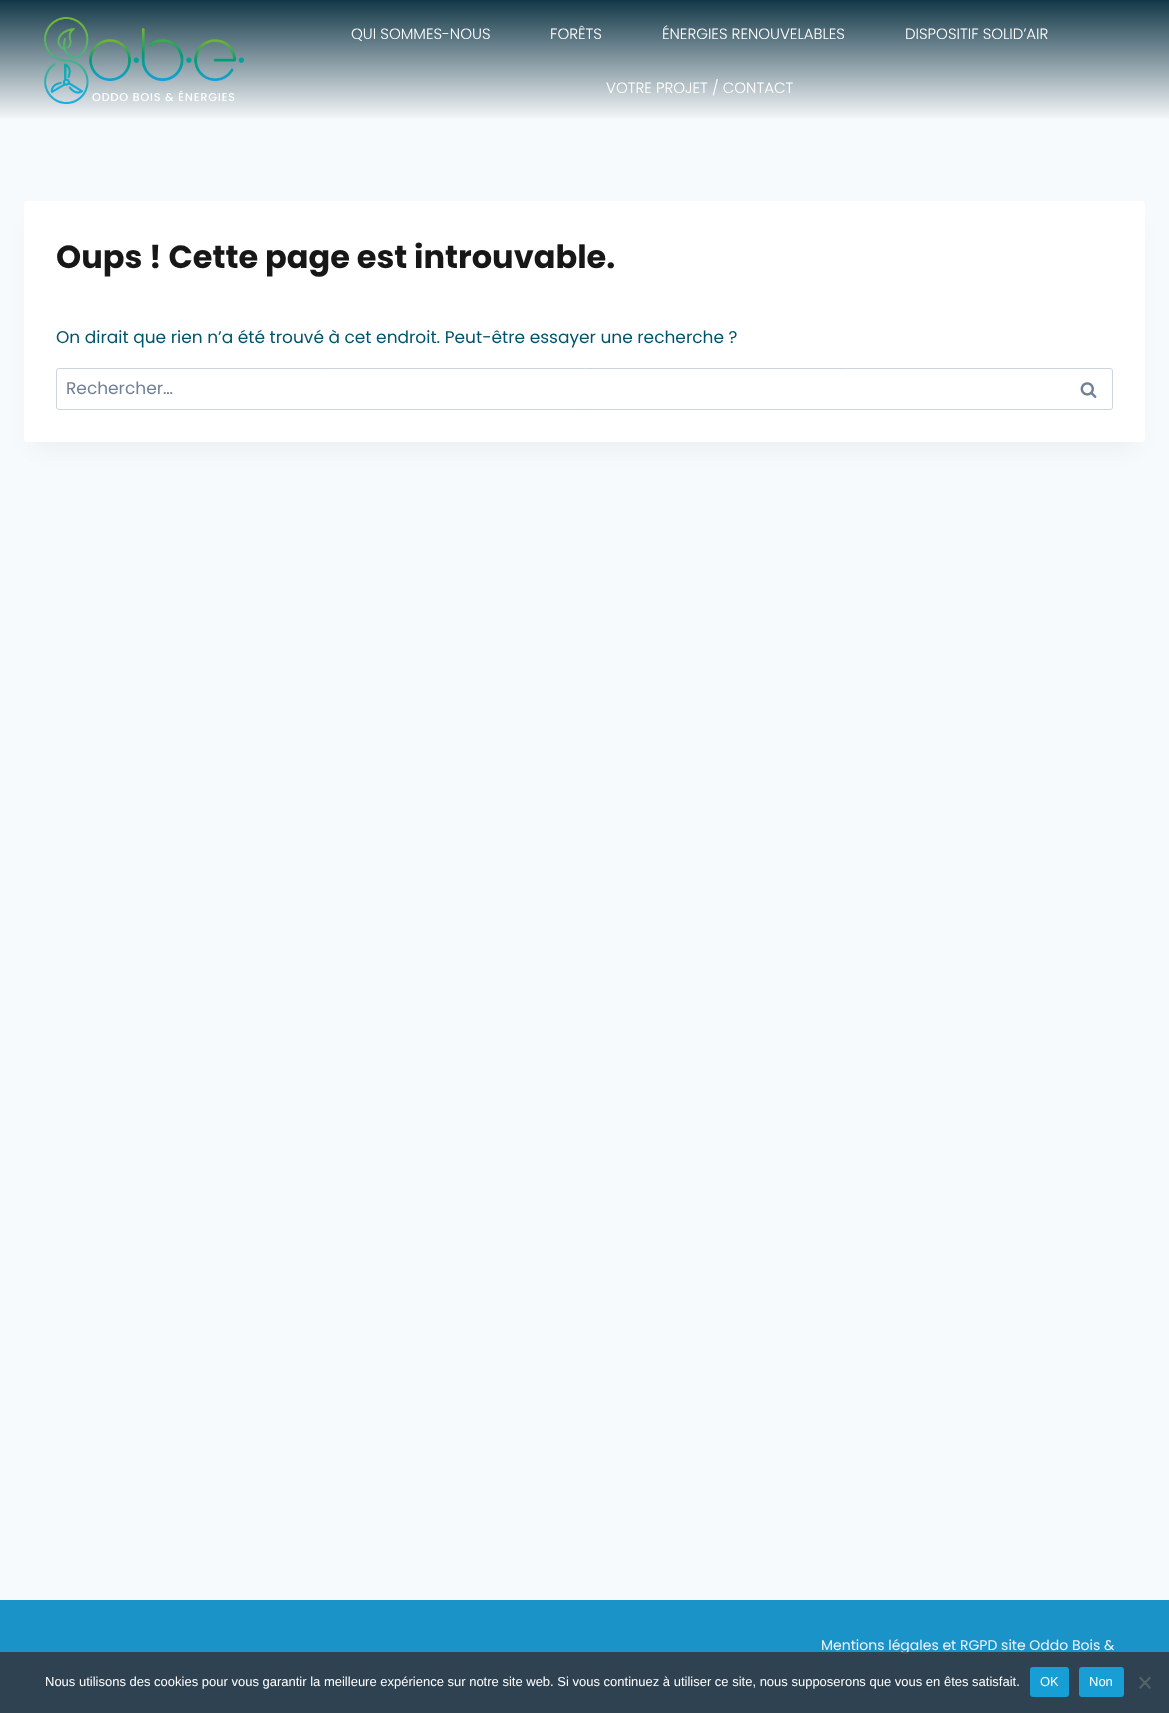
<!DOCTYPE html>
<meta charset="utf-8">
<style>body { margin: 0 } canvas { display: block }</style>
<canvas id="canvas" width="1169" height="1713"></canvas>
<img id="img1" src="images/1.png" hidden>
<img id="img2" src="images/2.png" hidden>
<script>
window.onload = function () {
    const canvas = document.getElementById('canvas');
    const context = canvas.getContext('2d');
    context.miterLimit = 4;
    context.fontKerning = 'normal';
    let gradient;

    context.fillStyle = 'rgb(247, 250, 252)';
    context.fillRect(0, 0, 1169, 1713);
    gradient = context.createLinearGradient(585, 121, 585, 0);
    gradient.addColorStop(0, 'rgb(248, 250, 252)');
    gradient.addColorStop(1, 'rgb(18, 56, 72)');
    context.fillStyle = gradient;
    context.fillRect(0, 0, 1169, 119);
    context.drawImage(document.getElementById('img1'), 44, 17, 200, 87);
    context.fillStyle = 'rgba(0, 0, 0, 0.05)';
    context.filter = 'blur(12.5px)';
    context.beginPath();
    context.rect(34, 226, 1101, 221);
    context.fill();
    context.filter = 'none';
    context.fillStyle = 'rgb(255, 255, 255)';
    context.beginPath();
    context.roundRect(24, 201, 1121, 241, 4);
    context.fill();
    context.beginPath();
    context.roundRect(56.5, 368.5, 1056, 41, 2.5);
    context.strokeStyle = 'rgb(203, 213, 224)';
    context.stroke();
    context.drawImage(document.getElementById('img2'), 1080, 382, 17, 16);
    context.fillStyle = 'rgb(25, 147, 200)';
    context.fillRect(0, 1600, 1169, 113);
    context.font = '300 15px Poppins';
    context.fillStyle = 'rgb(255, 255, 255)';
    context.fillText('QUI SOMMES-NOUS', 351, 39);
    context.fillText('FORÊTS', 550, 39);
    context.fillText('ÉNERGIES RENOUVELABLES', 662, 39);
    context.fillText('DISPOSITIF SOLID’AIR', 905, 39);
    context.fillText('VOTRE PROJET / CONTACT', 606, 93);
    context.font = 'bold 32px Poppins';
    context.fillStyle = 'rgb(23, 23, 23)';
    context.fillText('Oups ! Cette page est introuvable.', 56, 268);
    context.font = '17px Poppins';
    context.fillStyle = 'rgb(0, 83, 108)';
    context.fillText('On dirait que rien n’a été trouvé à cet endroit. Peut-être essayer une recherche ?', 56, 343);
    context.fillStyle = 'rgb(113, 128, 150)';
    context.fillText('Rechercher…', 66, 394);
    context.font = '14px Poppins';
    context.fillStyle = 'rgb(237, 242, 247)';
    context.fillText('Mentions légales et RGPD site Oddo Bois &', 821, 1650);
    context.fillStyle = 'rgba(50, 50, 58, 0.84)';
    context.fillRect(0, 1652, 1169, 61);
    context.font = '13px Liberation Sans';
    context.fillStyle = 'rgb(255, 255, 255)';
    context.fillText('Nous utilisons des cookies pour vous garantir la meilleure expérience sur notre site web. Si vous continuez à utiliser ce site, nous supposerons que vous en êtes satisfait.', 45, 1686);
    context.fillStyle = 'rgb(22, 158, 213)';
    context.beginPath();
    context.roundRect(1030, 1667, 39, 30, 3);
    context.fill();
    context.fillStyle = 'rgb(255, 255, 255)';
    context.fillText('OK', 1040, 1686);
    context.fillStyle = 'rgb(22, 158, 213)';
    context.beginPath();
    context.roundRect(1079, 1667, 45, 30, 3);
    context.fill();
    context.fillStyle = 'rgb(255, 255, 255)';
    context.fillText('Non', 1089, 1686);
    context.fillStyle = 'rgb(87, 97, 104)';
    context.beginPath();
    context.moveTo(1149.5, 1676.5);
    context.lineTo(1151, 1678);
    context.lineTo(1140.5, 1689);
    context.lineTo(1139, 1687.5);
    context.closePath();
    context.fill();
    context.beginPath();
    context.moveTo(1139, 1678);
    context.lineTo(1140.5, 1676.5);
    context.lineTo(1151, 1687.5);
    context.lineTo(1149.5, 1689);
    context.closePath();
    context.fill();
};
</script>
